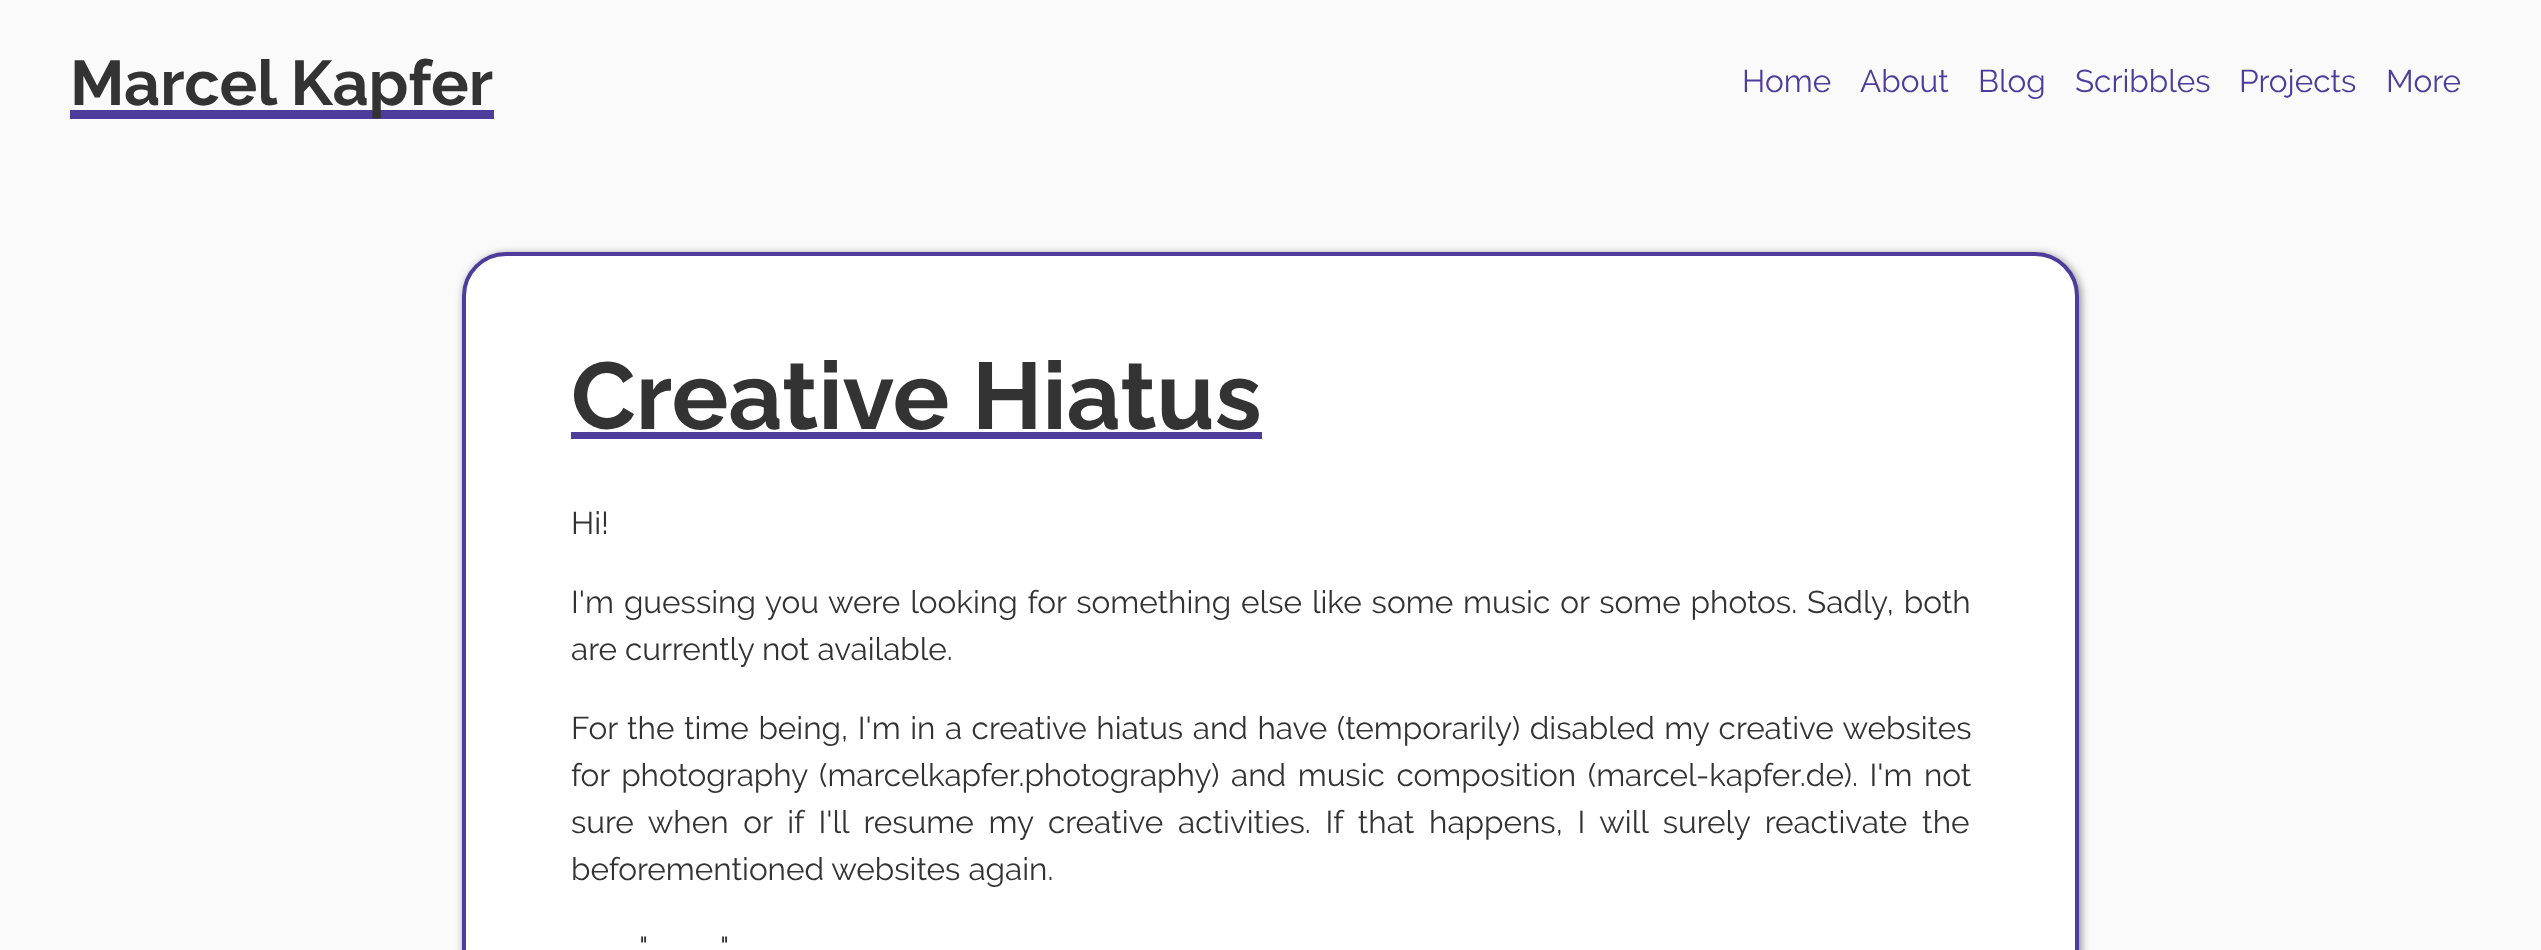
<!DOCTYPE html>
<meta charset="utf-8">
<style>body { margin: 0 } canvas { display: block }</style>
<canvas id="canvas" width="2541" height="950"></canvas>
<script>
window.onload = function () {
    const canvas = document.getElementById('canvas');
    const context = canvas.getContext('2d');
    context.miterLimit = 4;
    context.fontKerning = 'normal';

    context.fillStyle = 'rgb(250, 250, 250)';
    context.fillRect(0, 0, 2541, 950);
    context.fillStyle = 'rgb(77, 60, 155)';
    context.fillRect(70, 110, 424, 9);
    context.fillStyle = 'rgb(136, 136, 136)';
    context.filter = 'blur(4.5px)';
    context.beginPath();
    context.roundRect(464, 254, 1617, 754, 44);
    context.fill();
    context.filter = 'none';
    context.fillStyle = 'rgb(255, 255, 255)';
    context.beginPath();
    context.roundRect(464, 254, 1613, 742, 42);
    context.fill();
    context.strokeStyle = 'rgb(77, 60, 155)';
    context.lineWidth = 4;
    context.stroke();
    context.fillStyle = 'rgb(77, 60, 155)';
    context.fillRect(571, 432, 691, 7);
    context.font = 'bold 63px Raleway';
    context.fillStyle = 'rgb(51, 51, 51)';
    context.fillText('Marcel Kapfer', 70, 105);
    context.font = '31.5px Raleway';
    context.fillStyle = 'rgb(77, 60, 155)';
    context.fillText('Home', 1742, 92);
    context.fillText('About', 1860, 92);
    context.fillText('Blog', 1978, 92);
    context.fillText('Scribbles', 2075, 92);
    context.fillText('Projects', 2239, 92);
    context.fillText('More', 2386, 92);
    context.font = 'bold 94.5px Raleway';
    context.fillStyle = 'rgb(51, 51, 51)';
    context.fillText('Creative Hiatus', 571, 429);
    context.font = '31.5px Raleway';
    context.fillText('Hi!', 571, 534);
    context.wordSpacing = '1.9px';
    context.fillText('I\'m guessing you were looking for something else like some music or some photos. Sadly, both', 571, 613);
    context.wordSpacing = '0px';
    context.fillText('are currently not available.', 571, 660);
    context.wordSpacing = '1.5px';
    context.fillText('For the time being, I\'m in a creative hiatus and have (temporarily) disabled my creative websites', 571, 739);
    context.wordSpacing = '3.5px';
    context.fillText('for photography (marcelkapfer.photography) and music composition (marcel-kapfer.de). I\'m not', 571, 786);
    context.wordSpacing = '6.75px';
    context.fillText('sure when or if I\'ll resume my creative activities. If that happens, I will surely reactivate the', 571, 833);
    context.wordSpacing = '0px';
    context.fillText('beforementioned websites again.', 571, 880);
    context.wordSpacing = '2px';
    context.fillText('"', 639, 959);
    context.fillText('"', 720, 959);
};
</script>
